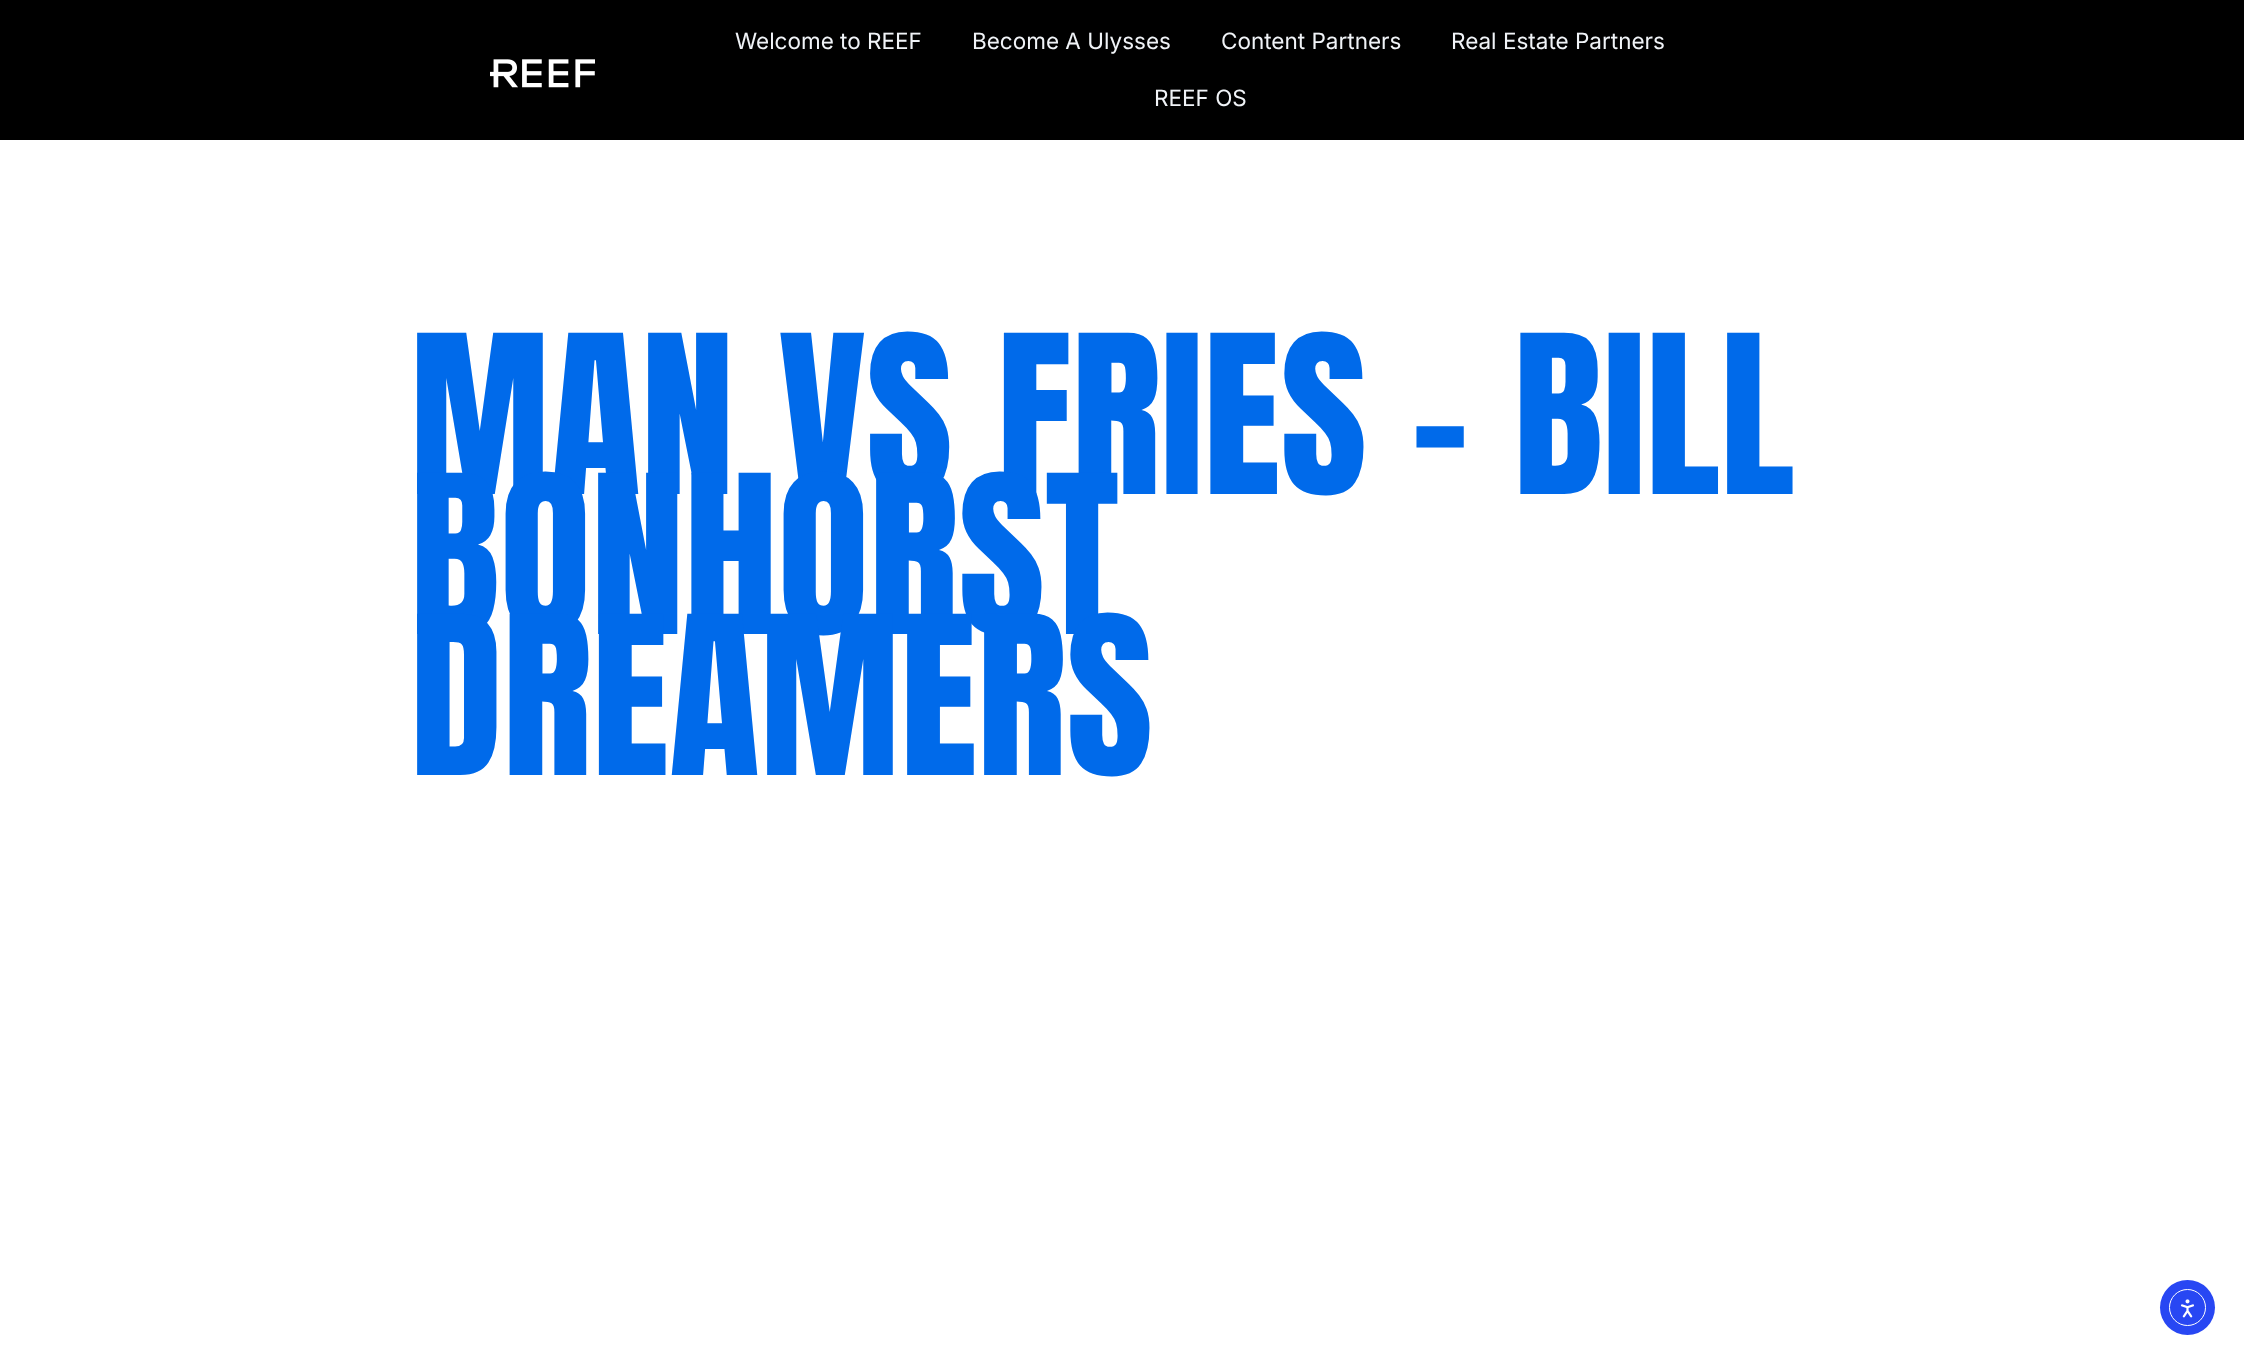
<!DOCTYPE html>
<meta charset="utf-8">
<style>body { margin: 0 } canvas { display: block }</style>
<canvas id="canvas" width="2244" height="1364"></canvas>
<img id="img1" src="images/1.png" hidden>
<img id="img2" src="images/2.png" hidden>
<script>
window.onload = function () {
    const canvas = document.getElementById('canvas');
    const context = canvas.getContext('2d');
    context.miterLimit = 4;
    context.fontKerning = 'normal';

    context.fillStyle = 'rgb(255, 255, 255)';
    context.fillRect(0, 0, 2244, 1364);
    context.fillStyle = 'rgb(0, 0, 0)';
    context.fillRect(0, 0, 2244, 140);
    context.drawImage(document.getElementById('img1'), 490, 59, 105, 29);
    context.fillStyle = 'rgb(40, 71, 243)';
    context.beginPath();
    context.arc(2187.5, 1307.5, 27.5, 0, 2 * Math.PI);
    context.fill();
    context.beginPath();
    context.arc(2187.5, 1307.5, 18, 0, 2 * Math.PI);
    context.strokeStyle = 'rgb(255, 255, 255)';
    context.stroke();
    context.drawImage(document.getElementById('img2'), 2180, 1299, 14, 19);
    context.font = '22.5px Inter';
    context.fillStyle = 'rgb(240, 243, 247)';
    context.fillText('Welcome to REEF', 735, 49);
    context.fillText('Become A Ulysses', 972, 49);
    context.fillText('Content Partners', 1221, 49);
    context.fillText('Real Estate Partners', 1451, 49);
    context.fillText('REEF OS', 1154, 106);
    context.font = '187.5px Anton';
    context.fillStyle = 'rgb(0, 106, 234)';
    context.fillText('MAN VS FRIES – BILL', 410, 494);
    context.fillText('BONHORST', 410, 634);
    context.fillText('DREAMERS', 410, 775);
};
</script>
